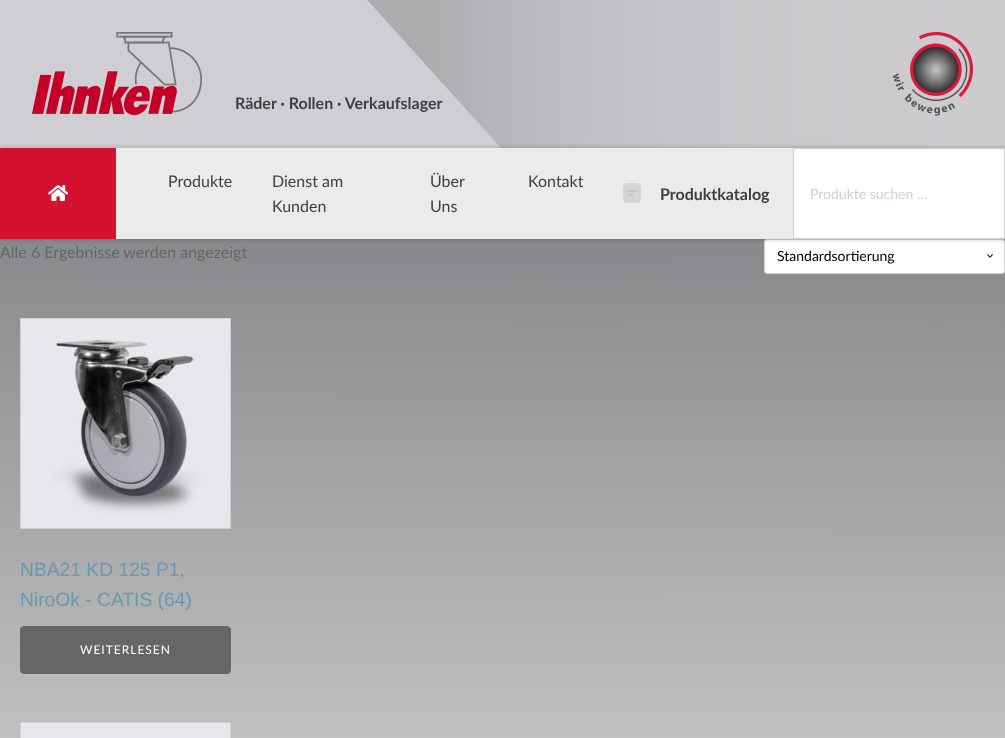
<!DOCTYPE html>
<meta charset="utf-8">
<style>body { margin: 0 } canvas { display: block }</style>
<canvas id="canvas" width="1005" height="738"></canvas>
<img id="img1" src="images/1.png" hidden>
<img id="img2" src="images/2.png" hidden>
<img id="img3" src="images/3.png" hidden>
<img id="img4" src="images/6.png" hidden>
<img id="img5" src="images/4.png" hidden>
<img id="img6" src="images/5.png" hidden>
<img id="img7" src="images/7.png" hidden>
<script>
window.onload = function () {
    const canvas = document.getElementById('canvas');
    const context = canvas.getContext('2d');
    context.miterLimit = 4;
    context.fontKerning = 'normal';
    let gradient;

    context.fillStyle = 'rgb(255, 255, 255)';
    context.fillRect(0, 0, 1005, 738);
    gradient = context.createLinearGradient(502, 0, 503, 738);
    gradient.addColorStop(0, 'rgb(110, 111, 115)');
    gradient.addColorStop(1, 'rgb(192, 192, 192)');
    context.fillStyle = gradient;
    context.fillRect(0, 239, 1005, 499);
    context.drawImage(document.getElementById('img1'), 0, 0, 1005, 148);
    context.drawImage(document.getElementById('img2'), 32, 32, 170, 83);
    context.drawImage(document.getElementById('img3'), 893, 32, 80, 84);
    context.fillStyle = 'rgb(255, 255, 255)';
    context.beginPath();
    context.roundRect(764, 239, 241, 35, 4);
    context.fill();
    context.drawImage(document.getElementById('img4'), 987, 254, 6, 4);
    context.beginPath();
    context.roundRect(764.5, 239.5, 240, 34, 3.5);
    context.strokeStyle = 'rgb(211, 206, 210)';
    context.stroke();
    context.fillStyle = 'rgba(0, 0, 0, 0.25)';
    context.filter = 'blur(2.5px)';
    context.beginPath();
    context.rect(0, 148, 1005, 91);
    context.fill();
    context.filter = 'none';
    context.fillStyle = 'rgb(235, 235, 235)';
    context.fillRect(116, 148, 677, 91);
    context.fillStyle = 'rgb(213, 17, 48)';
    context.fillRect(0, 148, 116, 91);
    context.drawImage(document.getElementById('img5'), 48, 185, 20, 16);
    context.drawImage(document.getElementById('img6'), 623, 183, 18, 20);
    context.fillStyle = 'rgb(255, 255, 255)';
    context.beginPath();
    context.rect(793.5, 148.5, 211, 90);
    context.fill();
    context.stroke();
    context.strokeRect(20.5, 318.5, 210, 210);
    context.drawImage(document.getElementById('img7'), 21, 319, 209, 209);
    context.fillStyle = 'rgb(102, 102, 102)';
    context.beginPath();
    context.roundRect(20.5, 626.5, 210, 47, 3.5);
    context.fill();
    context.strokeStyle = 'rgb(102, 102, 102)';
    context.stroke();
    context.strokeStyle = 'rgb(211, 206, 210)';
    context.strokeRect(20.5, 722.5, 210, 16);
    context.fillStyle = 'rgb(232, 231, 236)';
    context.fillRect(21, 723, 209, 15);
    context.font = 'bold 16px Lato';
    context.fillStyle = 'rgb(64, 64, 64)';
    context.fillText('Räder · Rollen · Verkaufslager', 235, 109);
    context.font = '16px Lato';
    context.fillText('Produkte', 168, 187);
    context.fillText('Dienst am', 272, 187);
    context.fillText('Kunden', 272, 212);
    context.fillText('Über', 430, 187);
    context.fillText('Uns', 430, 212);
    context.fillText('Kontakt', 528, 187);
    context.font = 'bold 16px Lato';
    context.fillText('Produktkatalog', 660, 200);
    context.font = '14px Lato';
    context.fillStyle = 'rgb(211, 206, 210)';
    context.fillText('Produkte suchen …', 810, 199);
    context.font = '16px Lato';
    context.fillStyle = 'rgb(102, 102, 102)';
    context.fillText('Alle 6 Ergebnisse werden angezeigt', 0, 258);
    context.font = '14px Lato';
    context.fillStyle = 'rgb(0, 0, 0)';
    context.fillText('Standardsortierung', 777, 261);
    context.font = '19.25px Liberation Sans';
    context.fillStyle = 'rgb(103, 153, 178)';
    context.fillText('NBA21 KD 125 P1,', 20, 576);
    context.fillText('NiroOk - CATIS (64)', 20, 606);
    context.letterSpacing = '1px';
    context.font = '12px Lato';
    context.fillStyle = 'rgb(255, 255, 255)';
    context.fillText('WEITERLESEN', 80, 654);
};
</script>
